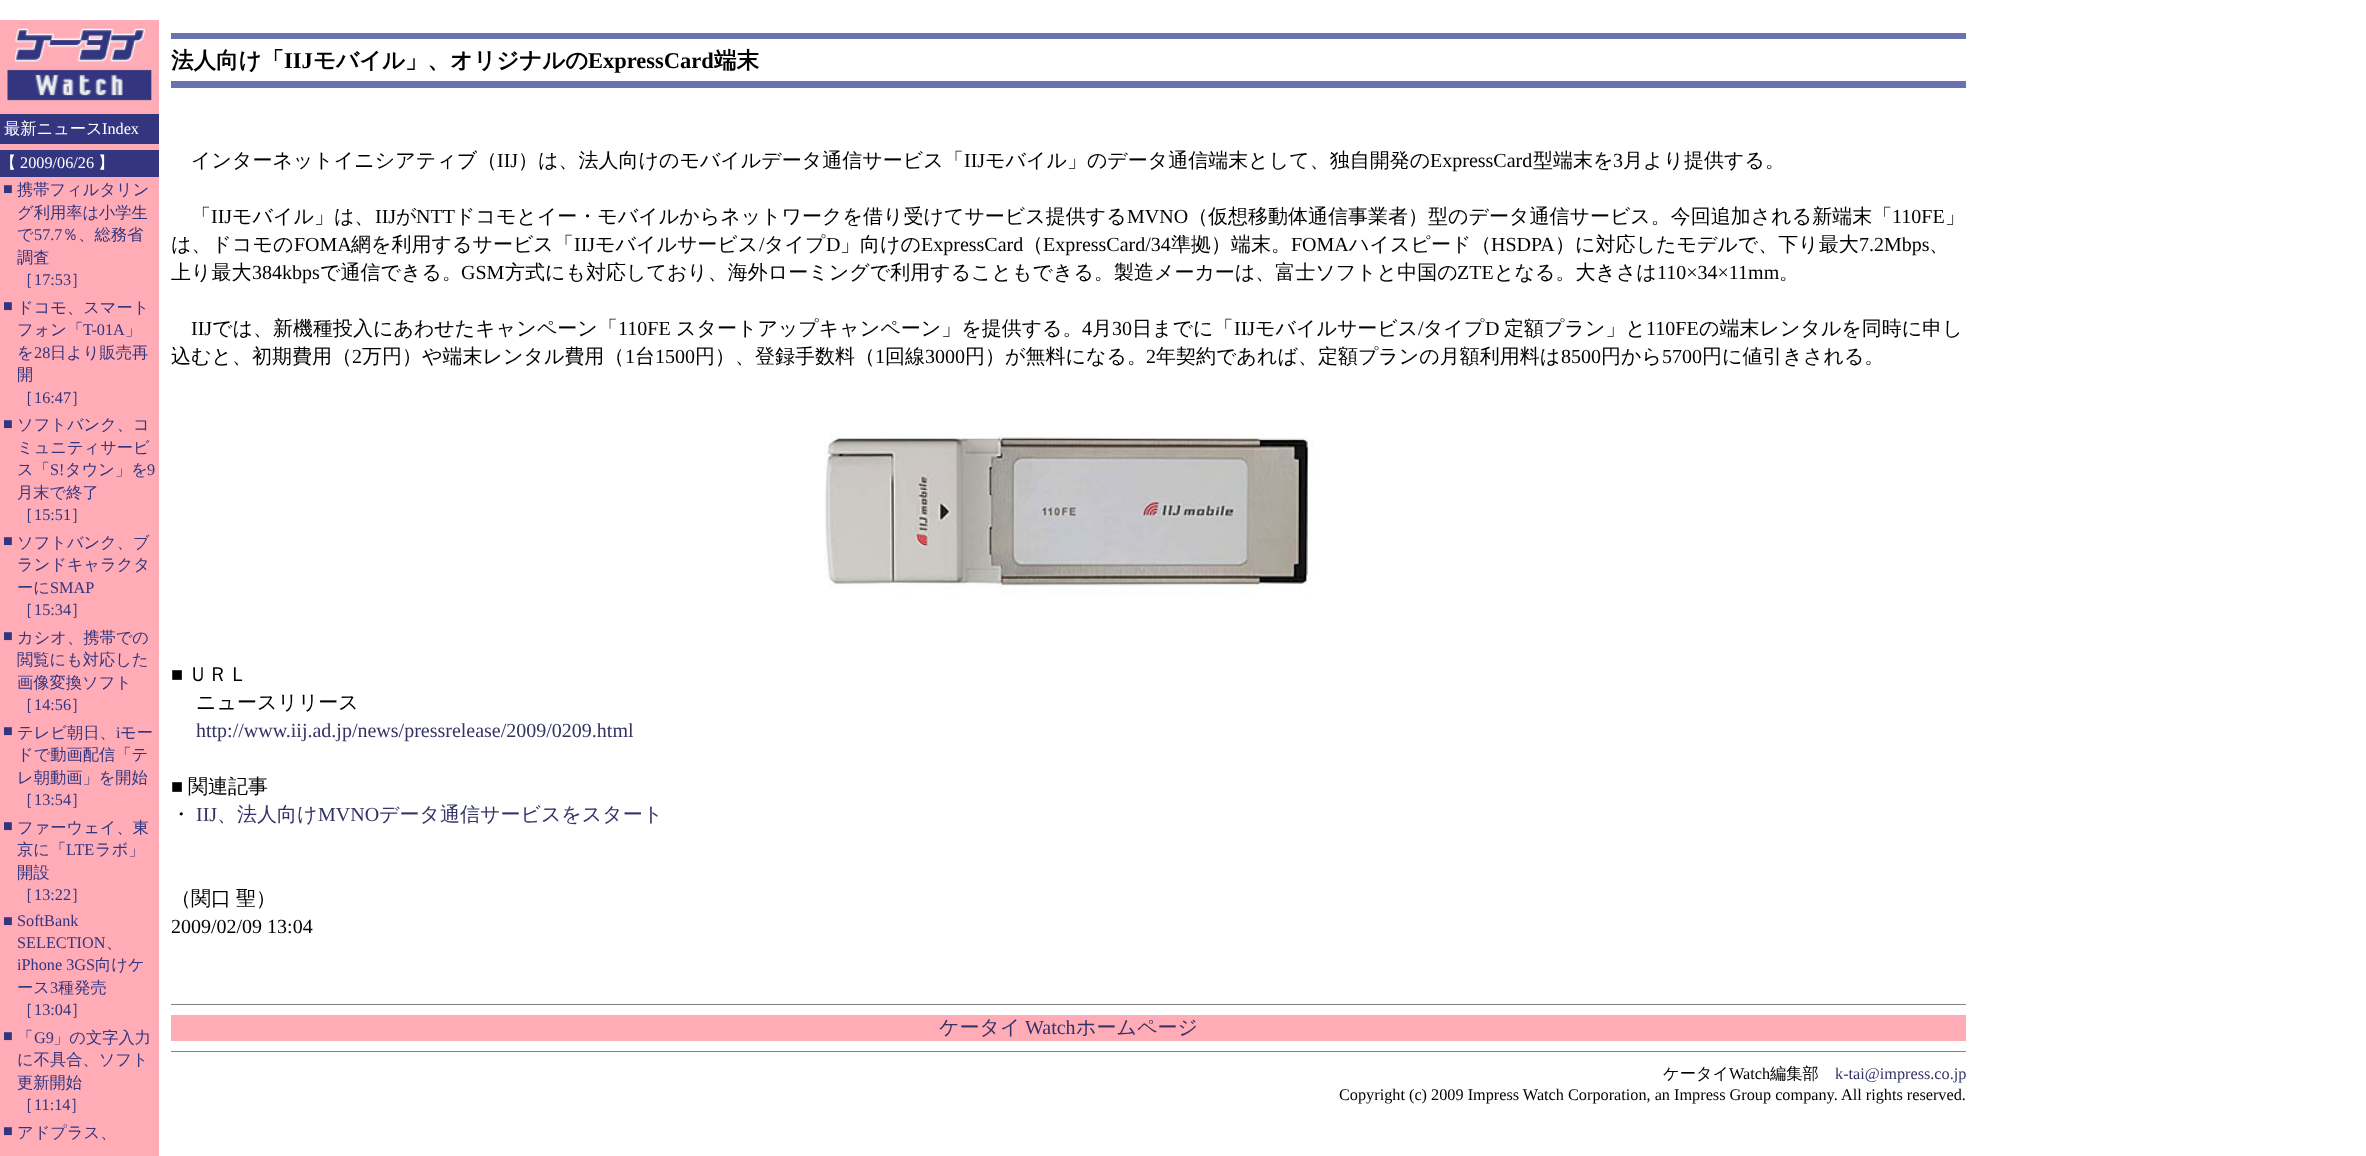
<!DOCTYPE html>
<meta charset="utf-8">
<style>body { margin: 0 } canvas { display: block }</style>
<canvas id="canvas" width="2366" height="1156"></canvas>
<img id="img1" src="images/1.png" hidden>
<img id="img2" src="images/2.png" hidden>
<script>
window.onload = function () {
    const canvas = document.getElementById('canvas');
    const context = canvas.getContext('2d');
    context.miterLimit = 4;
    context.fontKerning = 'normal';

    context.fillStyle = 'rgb(255, 255, 255)';
    context.fillRect(0, 0, 2366, 1156);
    context.fillStyle = 'rgb(255, 172, 183)';
    context.fillRect(0, 20, 159, 1136);
    context.drawImage(document.getElementById('img1'), 7, 26, 145, 75);
    context.fillStyle = 'rgb(51, 53, 127)';
    context.fillRect(0, 114, 159, 30);
    context.fillRect(0, 150, 159, 27);
    context.fillStyle = 'rgb(106, 114, 177)';
    context.fillRect(171, 33, 1795, 6);
    context.fillRect(171, 81, 1795, 7);
    context.drawImage(document.getElementById('img2'), 824, 434, 489, 162);
    context.fillStyle = 'rgb(128, 128, 128)';
    context.fillRect(171, 1004, 1795, 1);
    context.fillStyle = 'rgb(255, 172, 183)';
    context.fillRect(171, 1015, 1795, 26);
    context.fillStyle = 'rgb(128, 128, 128)';
    context.fillRect(171, 1051, 1795, 1);
    context.font = '500 16.25px WenQuanYi Zen Hei';
    context.fillStyle = 'rgb(255, 255, 255)';
    context.fillText('最新ニュース', 4, 134);
    context.font = '16.25px Liberation Serif';
    context.fillText('Index', 102, 134);
    context.font = '500 16.25px WenQuanYi Zen Hei';
    context.fillText('【', 0, 168);
    context.font = '16.25px Liberation Serif';
    context.fillText('2009/06/26', 20, 168);
    context.font = '500 16.25px WenQuanYi Zen Hei';
    context.fillText('】', 98, 168);
    context.font = '16.25px Liberation Serif';
    context.fillStyle = 'rgb(51, 53, 127)';
    context.fillText('■', 3, 194);
    context.font = '500 16.25px WenQuanYi Zen Hei';
    context.fillText('携帯フィルタリン', 17, 195);
    context.fillText('グ利用率は小学生', 17, 218);
    context.fillText('で', 17, 240);
    context.font = '16.25px Liberation Serif';
    context.fillText('57.7', 34, 240);
    context.font = '500 16.25px WenQuanYi Zen Hei';
    context.fillText('％、総務省', 62, 240);
    context.fillText('調査', 17, 263);
    context.fillText('［', 17, 285);
    context.font = '16.25px Liberation Serif';
    context.fillText('17:53', 34, 285);
    context.font = '500 16.25px WenQuanYi Zen Hei';
    context.fillText('］', 71, 285);
    context.font = '16.25px Liberation Serif';
    context.fillText('■', 3, 311);
    context.font = '500 16.25px WenQuanYi Zen Hei';
    context.fillText('ドコモ、スマート', 17, 313);
    context.fillText('フォン「', 17, 335);
    context.font = '16.25px Liberation Serif';
    context.fillText('T-01A', 83, 335);
    context.font = '500 16.25px WenQuanYi Zen Hei';
    context.fillText('」', 125, 335);
    context.fillText('を', 17, 358);
    context.font = '16.25px Liberation Serif';
    context.fillText('28', 34, 358);
    context.font = '500 16.25px WenQuanYi Zen Hei';
    context.fillText('日より販売再', 50, 358);
    context.fillText('開', 17, 380);
    context.fillText('［', 17, 403);
    context.font = '16.25px Liberation Serif';
    context.fillText('16:47', 34, 403);
    context.font = '500 16.25px WenQuanYi Zen Hei';
    context.fillText('］', 71, 403);
    context.font = '16.25px Liberation Serif';
    context.fillText('■', 3, 429);
    context.font = '500 16.25px WenQuanYi Zen Hei';
    context.fillText('ソフトバンク、コ', 17, 430);
    context.fillText('ミュニティサービ', 17, 453);
    context.fillText('ス「', 17, 475);
    context.font = '16.25px Liberation Serif';
    context.fillText('S!', 50, 475);
    context.font = '500 16.25px WenQuanYi Zen Hei';
    context.fillText('タウン」を', 65, 475);
    context.font = '16.25px Liberation Serif';
    context.fillText('9', 147, 475);
    context.font = '500 16.25px WenQuanYi Zen Hei';
    context.fillText('月末で終了', 17, 498);
    context.fillText('［', 17, 520);
    context.font = '16.25px Liberation Serif';
    context.fillText('15:51', 34, 520);
    context.font = '500 16.25px WenQuanYi Zen Hei';
    context.fillText('］', 71, 520);
    context.font = '16.25px Liberation Serif';
    context.fillText('■', 3, 546);
    context.font = '500 16.25px WenQuanYi Zen Hei';
    context.fillText('ソフトバンク、ブ', 17, 548);
    context.fillText('ランドキャラクタ', 17, 570);
    context.fillText('ーに', 17, 593);
    context.font = '16.25px Liberation Serif';
    context.fillText('SMAP', 50, 593);
    context.font = '500 16.25px WenQuanYi Zen Hei';
    context.fillText('［', 17, 615);
    context.font = '16.25px Liberation Serif';
    context.fillText('15:34', 34, 615);
    context.font = '500 16.25px WenQuanYi Zen Hei';
    context.fillText('］', 71, 615);
    context.font = '16.25px Liberation Serif';
    context.fillText('■', 3, 641);
    context.font = '500 16.25px WenQuanYi Zen Hei';
    context.fillText('カシオ、携帯での', 17, 643);
    context.fillText('閲覧にも対応した', 17, 665);
    context.fillText('画像変換ソフト', 17, 688);
    context.fillText('［', 17, 710);
    context.font = '16.25px Liberation Serif';
    context.fillText('14:56', 34, 710);
    context.font = '500 16.25px WenQuanYi Zen Hei';
    context.fillText('］', 71, 710);
    context.font = '16.25px Liberation Serif';
    context.fillText('■', 3, 736);
    context.font = '500 16.25px WenQuanYi Zen Hei';
    context.fillText('テレビ朝日、', 17, 738);
    context.font = '16.25px Liberation Serif';
    context.fillText('i', 116, 738);
    context.font = '500 16.25px WenQuanYi Zen Hei';
    context.fillText('モー', 120, 738);
    context.fillText('ドで動画配信「テ', 17, 760);
    context.fillText('レ朝動画」を開始', 17, 783);
    context.fillText('［', 17, 805);
    context.font = '16.25px Liberation Serif';
    context.fillText('13:54', 34, 805);
    context.font = '500 16.25px WenQuanYi Zen Hei';
    context.fillText('］', 71, 805);
    context.font = '16.25px Liberation Serif';
    context.fillText('■', 3, 831);
    context.font = '500 16.25px WenQuanYi Zen Hei';
    context.fillText('ファーウェイ、東', 17, 833);
    context.fillText('京に「', 17, 855);
    context.font = '16.25px Liberation Serif';
    context.fillText('LTE', 66, 855);
    context.font = '500 16.25px WenQuanYi Zen Hei';
    context.fillText('ラボ」', 95, 855);
    context.fillText('開設', 17, 878);
    context.fillText('［', 17, 900);
    context.font = '16.25px Liberation Serif';
    context.fillText('13:22', 34, 900);
    context.font = '500 16.25px WenQuanYi Zen Hei';
    context.fillText('］', 71, 900);
    context.font = '16.25px Liberation Serif';
    context.fillText('■', 3, 926);
    context.fillText('SoftBank', 17, 926);
    context.fillText('SELECTION', 17, 948);
    context.font = '500 16.25px WenQuanYi Zen Hei';
    context.fillText('、', 106, 948);
    context.font = '16.25px Liberation Serif';
    context.fillText('iPhone 3GS', 17, 970);
    context.font = '500 16.25px WenQuanYi Zen Hei';
    context.fillText('向けケ', 95, 970);
    context.fillText('ース', 17, 993);
    context.font = '16.25px Liberation Serif';
    context.fillText('3', 50, 993);
    context.font = '500 16.25px WenQuanYi Zen Hei';
    context.fillText('種発売', 58, 993);
    context.fillText('［', 17, 1015);
    context.font = '16.25px Liberation Serif';
    context.fillText('13:04', 34, 1015);
    context.font = '500 16.25px WenQuanYi Zen Hei';
    context.fillText('］', 71, 1015);
    context.font = '16.25px Liberation Serif';
    context.fillText('■', 3, 1041);
    context.font = '500 16.25px WenQuanYi Zen Hei';
    context.fillText('「', 17, 1043);
    context.font = '16.25px Liberation Serif';
    context.fillText('G9', 34, 1043);
    context.font = '500 16.25px WenQuanYi Zen Hei';
    context.fillText('」の文字入力', 53, 1043);
    context.fillText('に不具合、ソフト', 17, 1065);
    context.fillText('更新開始', 17, 1088);
    context.fillText('［', 17, 1110);
    context.font = '16.25px Liberation Serif';
    context.fillText('11:14', 34, 1110);
    context.font = '500 16.25px WenQuanYi Zen Hei';
    context.fillText('］', 70, 1110);
    context.font = '16.25px Liberation Serif';
    context.fillText('■', 3, 1136);
    context.font = '500 16.25px WenQuanYi Zen Hei';
    context.fillText('アドプラス、', 17, 1138);
    context.font = 'bold 22.5px WenQuanYi Zen Hei';
    context.fillStyle = 'rgb(0, 0, 0)';
    context.fillText('法人向け「', 171, 68);
    context.font = 'bold 22.5px Liberation Serif';
    context.fillText('IIJ', 284, 68);
    context.font = 'bold 22.5px WenQuanYi Zen Hei';
    context.fillText('モバイル」、オリジナルの', 313, 68);
    context.font = 'bold 22.5px Liberation Serif';
    context.fillText('ExpressCard', 588, 68);
    context.font = 'bold 22.5px WenQuanYi Zen Hei';
    context.fillText('端末', 714, 68);
    context.font = '500 20px WenQuanYi Zen Hei';
    context.fillText('インターネットイニシアティブ（', 191, 167);
    context.font = '20px Liberation Serif';
    context.fillText('IIJ', 497, 167);
    context.font = '500 20px WenQuanYi Zen Hei';
    context.fillText('）は、法人向けのモバイルデータ通信サービス「', 518, 167);
    context.font = '20px Liberation Serif';
    context.fillText('IIJ', 964, 167);
    context.font = '500 20px WenQuanYi Zen Hei';
    context.fillText('モバイル」のデータ通信端末として、独自開発の', 985, 167);
    context.font = '20px Liberation Serif';
    context.fillText('ExpressCard', 1430, 167);
    context.font = '500 20px WenQuanYi Zen Hei';
    context.fillText('型端末を', 1533, 167);
    context.font = '20px Liberation Serif';
    context.fillText('3', 1613, 167);
    context.font = '500 20px WenQuanYi Zen Hei';
    context.fillText('月より提供する。', 1623, 167);
    context.fillText('「', 191, 223);
    context.font = '20px Liberation Serif';
    context.fillText('IIJ', 211, 223);
    context.font = '500 20px WenQuanYi Zen Hei';
    context.fillText('モバイル」は、', 232, 223);
    context.font = '20px Liberation Serif';
    context.fillText('IIJ', 375, 223);
    context.font = '500 20px WenQuanYi Zen Hei';
    context.fillText('が', 396, 223);
    context.font = '20px Liberation Serif';
    context.fillText('NTT', 416, 223);
    context.font = '500 20px WenQuanYi Zen Hei';
    context.fillText('ドコモとイー・モバイルからネットワークを借り受けてサービス提供する', 455, 223);
    context.font = '20px Liberation Serif';
    context.fillText('MVNO', 1127, 223);
    context.font = '500 20px WenQuanYi Zen Hei';
    context.fillText('（仮想移動体通信事業者）型のデータ通信サービス。今回追加される新端末「', 1188, 223);
    context.font = '20px Liberation Serif';
    context.fillText('110FE', 1892, 223);
    context.font = '500 20px WenQuanYi Zen Hei';
    context.fillText('」', 1945, 223);
    context.fillText('は、ドコモの', 171, 251);
    context.font = '20px Liberation Serif';
    context.fillText('FOMA', 294, 251);
    context.font = '500 20px WenQuanYi Zen Hei';
    context.fillText('網を利用するサービス「', 351, 251);
    context.font = '20px Liberation Serif';
    context.fillText('IIJ', 574, 251);
    context.font = '500 20px WenQuanYi Zen Hei';
    context.fillText('モバイルサービス', 595, 251);
    context.font = '20px Liberation Serif';
    context.fillText('/', 759, 251);
    context.font = '500 20px WenQuanYi Zen Hei';
    context.fillText('タイプ', 764, 251);
    context.font = '20px Liberation Serif';
    context.fillText('D', 826, 251);
    context.font = '500 20px WenQuanYi Zen Hei';
    context.fillText('」向けの', 840, 251);
    context.font = '20px Liberation Serif';
    context.fillText('ExpressCard', 921, 251);
    context.font = '500 20px WenQuanYi Zen Hei';
    context.fillText('（', 1023, 251);
    context.font = '20px Liberation Serif';
    context.fillText('ExpressCard/34', 1043, 251);
    context.font = '500 20px WenQuanYi Zen Hei';
    context.fillText('準拠）端末。', 1171, 251);
    context.font = '20px Liberation Serif';
    context.fillText('FOMA', 1291, 251);
    context.font = '500 20px WenQuanYi Zen Hei';
    context.fillText('ハイスピード（', 1349, 251);
    context.font = '20px Liberation Serif';
    context.fillText('HSDPA', 1491, 251);
    context.font = '500 20px WenQuanYi Zen Hei';
    context.fillText('）に対応したモデルで、下り最大', 1555, 251);
    context.font = '20px Liberation Serif';
    context.fillText('7.2Mbps', 1859, 251);
    context.font = '500 20px WenQuanYi Zen Hei';
    context.fillText('、', 1929, 251);
    context.fillText('上り最大', 171, 279);
    context.font = '20px Liberation Serif';
    context.fillText('384kbps', 252, 279);
    context.font = '500 20px WenQuanYi Zen Hei';
    context.fillText('で通信できる。', 320, 279);
    context.font = '20px Liberation Serif';
    context.fillText('GSM', 461, 279);
    context.font = '500 20px WenQuanYi Zen Hei';
    context.fillText('方式にも対応しており、海外ローミングで利用することもできる。製造メーカーは、富士ソフトと中国の', 505, 279);
    context.font = '20px Liberation Serif';
    context.fillText('ZTE', 1457, 279);
    context.font = '500 20px WenQuanYi Zen Hei';
    context.fillText('となる。大きさは', 1494, 279);
    context.font = '20px Liberation Serif';
    context.fillText('110×34×11mm', 1657, 279);
    context.font = '500 20px WenQuanYi Zen Hei';
    context.fillText('。', 1779, 279);
    context.font = '20px Liberation Serif';
    context.fillText('IIJ', 191, 335);
    context.font = '500 20px WenQuanYi Zen Hei';
    context.fillText('では、新機種投入にあわせたキャンペーン「', 212, 335);
    context.font = '20px Liberation Serif';
    context.fillText('110FE', 618, 335);
    context.font = '500 20px WenQuanYi Zen Hei';
    context.fillText('スタートアップキャンペーン」を提供する。', 676, 335);
    context.font = '20px Liberation Serif';
    context.fillText('4', 1082, 335);
    context.font = '500 20px WenQuanYi Zen Hei';
    context.fillText('月', 1092, 335);
    context.font = '20px Liberation Serif';
    context.fillText('30', 1112, 335);
    context.font = '500 20px WenQuanYi Zen Hei';
    context.fillText('日までに「', 1132, 335);
    context.font = '20px Liberation Serif';
    context.fillText('IIJ', 1234, 335);
    context.font = '500 20px WenQuanYi Zen Hei';
    context.fillText('モバイルサービス', 1255, 335);
    context.font = '20px Liberation Serif';
    context.fillText('/', 1418, 335);
    context.font = '500 20px WenQuanYi Zen Hei';
    context.fillText('タイプ', 1423, 335);
    context.font = '20px Liberation Serif';
    context.fillText('D', 1485, 335);
    context.font = '500 20px WenQuanYi Zen Hei';
    context.fillText('定額プラン」と', 1504, 335);
    context.font = '20px Liberation Serif';
    context.fillText('110FE', 1646, 335);
    context.font = '500 20px WenQuanYi Zen Hei';
    context.fillText('の端末レンタルを同時に申し', 1699, 335);
    context.fillText('込むと、初期費用（', 171, 363);
    context.font = '20px Liberation Serif';
    context.fillText('2', 352, 363);
    context.font = '500 20px WenQuanYi Zen Hei';
    context.fillText('万円）や端末レンタル費用（', 362, 363);
    context.font = '20px Liberation Serif';
    context.fillText('1', 625, 363);
    context.font = '500 20px WenQuanYi Zen Hei';
    context.fillText('台', 635, 363);
    context.font = '20px Liberation Serif';
    context.fillText('1500', 655, 363);
    context.font = '500 20px WenQuanYi Zen Hei';
    context.fillText('円）、登録手数料（', 695, 363);
    context.font = '20px Liberation Serif';
    context.fillText('1', 875, 363);
    context.font = '500 20px WenQuanYi Zen Hei';
    context.fillText('回線', 885, 363);
    context.font = '20px Liberation Serif';
    context.fillText('3000', 925, 363);
    context.font = '500 20px WenQuanYi Zen Hei';
    context.fillText('円）が無料になる。', 965, 363);
    context.font = '20px Liberation Serif';
    context.fillText('2', 1146, 363);
    context.font = '500 20px WenQuanYi Zen Hei';
    context.fillText('年契約であれば、定額プランの月額利用料は', 1156, 363);
    context.font = '20px Liberation Serif';
    context.fillText('8500', 1561, 363);
    context.font = '500 20px WenQuanYi Zen Hei';
    context.fillText('円から', 1601, 363);
    context.font = '20px Liberation Serif';
    context.fillText('5700', 1662, 363);
    context.font = '500 20px WenQuanYi Zen Hei';
    context.fillText('円に値引きされる。', 1702, 363);
    context.font = '20px Liberation Serif';
    context.fillText('■', 171, 681);
    context.font = '500 20px WenQuanYi Zen Hei';
    context.fillText('ＵＲＬ', 188, 681);
    context.fillText('ニュースリリース', 196, 709);
    context.font = '20px Liberation Serif';
    context.fillStyle = 'rgb(51, 51, 102)';
    context.fillText('http://www.iij.ad.jp/news/pressrelease/2009/0209.html', 196, 737);
    context.fillStyle = 'rgb(0, 0, 0)';
    context.fillText('■', 171, 793);
    context.font = '500 20px WenQuanYi Zen Hei';
    context.fillText('関連記事', 188, 793);
    context.fillText('・', 171, 821);
    context.font = '20px Liberation Serif';
    context.fillStyle = 'rgb(51, 51, 102)';
    context.fillText('IIJ', 196, 821);
    context.font = '500 20px WenQuanYi Zen Hei';
    context.fillText('、法人向け', 217, 821);
    context.font = '20px Liberation Serif';
    context.fillText('MVNO', 318, 821);
    context.font = '500 20px WenQuanYi Zen Hei';
    context.fillText('データ通信サービスをスタート', 379, 821);
    context.wordSpacing = '-1px';
    context.fillStyle = 'rgb(0, 0, 0)';
    context.fillText('（関口 聖）', 171, 905);
    context.wordSpacing = '0px';
    context.font = '20px Liberation Serif';
    context.fillText('2009/02/09 13:04', 171, 933);
    context.font = '500 20px WenQuanYi Zen Hei';
    context.fillStyle = 'rgb(51, 51, 102)';
    context.fillText('ケータイ', 939, 1034);
    context.font = '20px Liberation Serif';
    context.fillText('Watch', 1025, 1034);
    context.font = '500 20px WenQuanYi Zen Hei';
    context.fillText('ホームページ', 1076, 1034);
    context.font = '500 16.25px WenQuanYi Zen Hei';
    context.fillStyle = 'rgb(0, 0, 0)';
    context.fillText('ケータイ', 1663, 1079);
    context.font = '16.25px Liberation Serif';
    context.fillText('Watch', 1729, 1079);
    context.font = '500 16.25px WenQuanYi Zen Hei';
    context.fillText('編集部', 1770, 1079);
    context.font = '16.25px Liberation Serif';
    context.fillStyle = 'rgb(51, 51, 102)';
    context.fillText('k-tai@impress.co.jp', 1835, 1079);
    context.fillStyle = 'rgb(0, 0, 0)';
    context.fillText('Copyright (c) 2009 Impress Watch Corporation, an Impress Group company. All rights reserved.', 1339, 1100);
};
</script>
